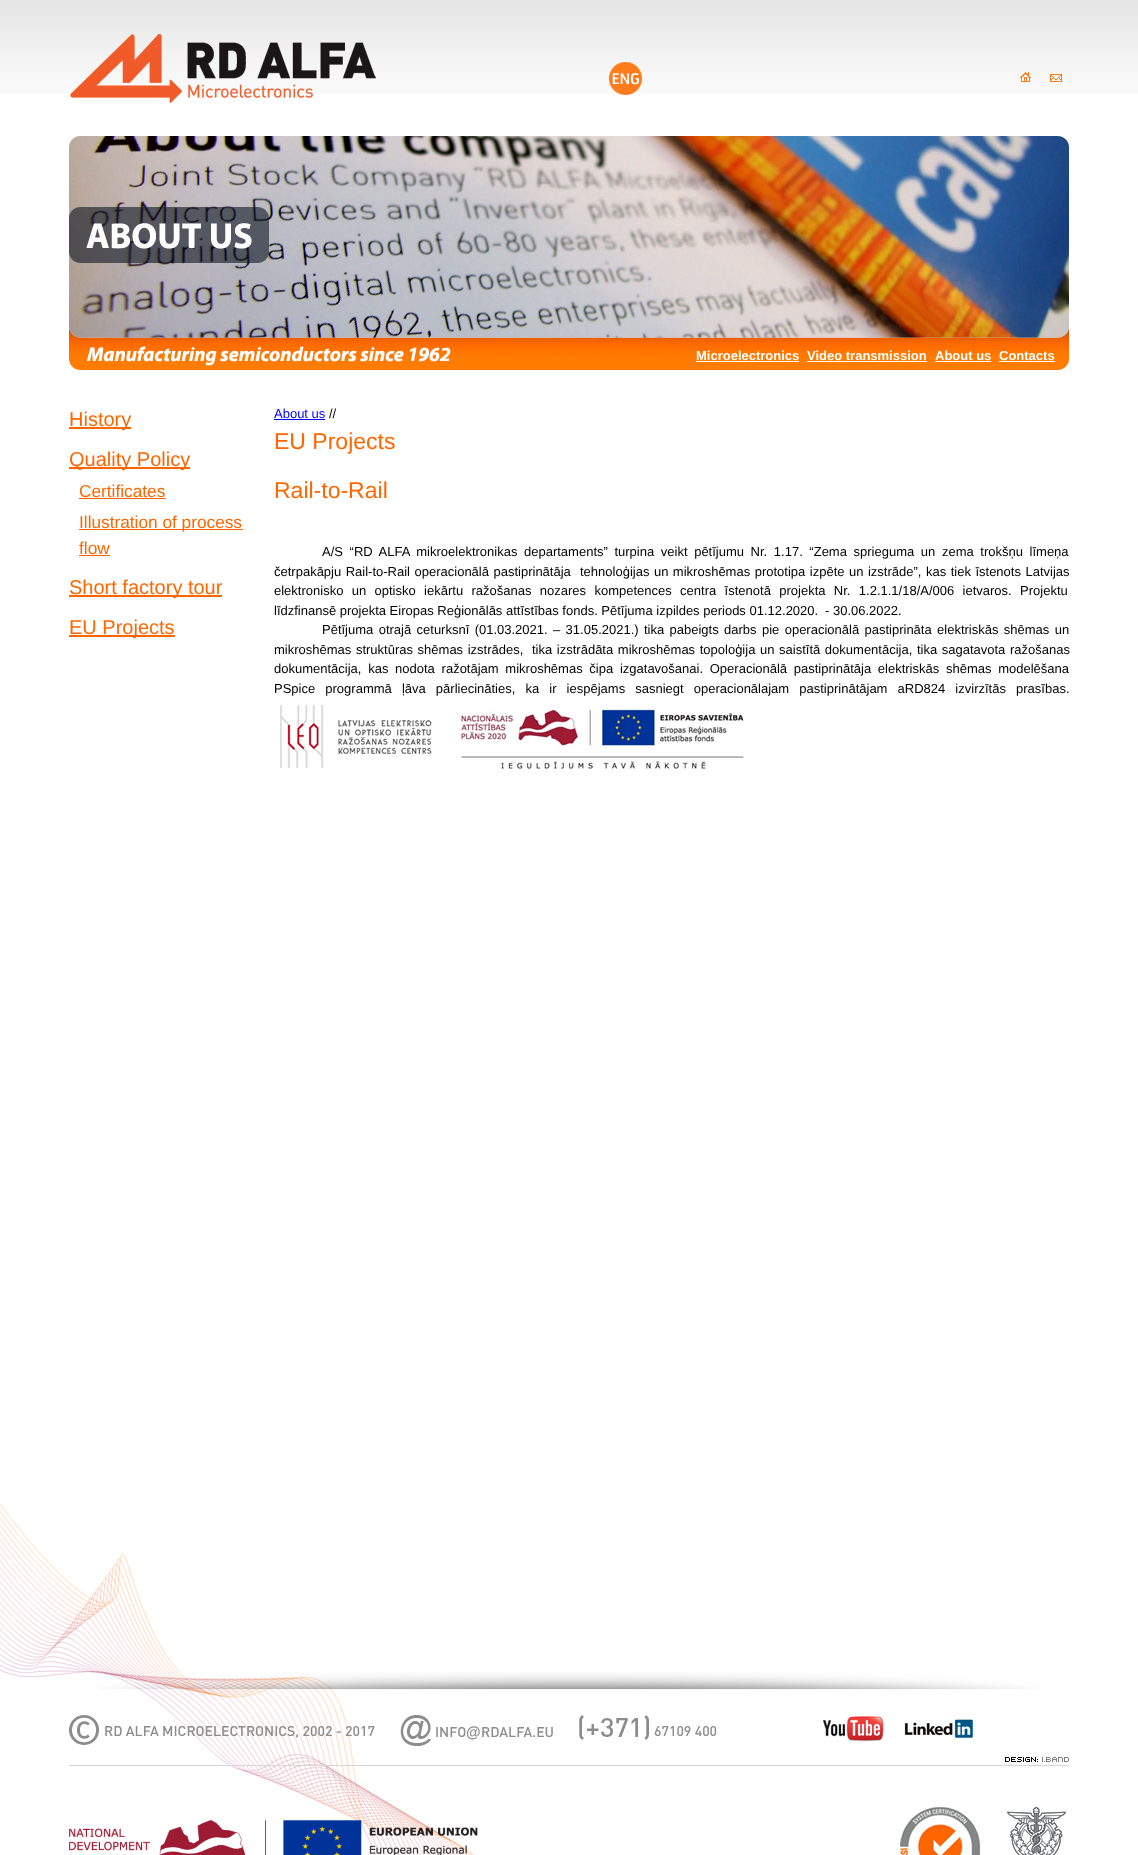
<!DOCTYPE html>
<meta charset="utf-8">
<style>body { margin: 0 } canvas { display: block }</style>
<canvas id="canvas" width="1138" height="1855"></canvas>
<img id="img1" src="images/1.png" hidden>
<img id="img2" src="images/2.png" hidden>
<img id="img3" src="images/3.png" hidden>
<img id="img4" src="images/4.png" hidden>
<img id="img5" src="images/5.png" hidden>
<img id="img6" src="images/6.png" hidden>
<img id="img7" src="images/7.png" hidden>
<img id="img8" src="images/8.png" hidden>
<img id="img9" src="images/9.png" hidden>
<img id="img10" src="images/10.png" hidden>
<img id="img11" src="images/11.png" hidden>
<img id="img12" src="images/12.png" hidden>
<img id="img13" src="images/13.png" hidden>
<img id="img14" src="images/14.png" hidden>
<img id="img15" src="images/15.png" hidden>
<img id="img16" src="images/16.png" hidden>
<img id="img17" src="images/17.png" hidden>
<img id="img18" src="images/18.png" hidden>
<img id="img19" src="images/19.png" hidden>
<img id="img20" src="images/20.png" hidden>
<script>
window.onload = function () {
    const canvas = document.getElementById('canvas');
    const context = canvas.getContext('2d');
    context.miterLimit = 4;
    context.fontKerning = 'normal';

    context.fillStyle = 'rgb(255, 255, 255)';
    context.fillRect(0, 0, 1138, 1855);
    context.drawImage(document.getElementById('img1'), 0, 1503, 475, 352);
    context.drawImage(document.getElementById('img2'), 0, 0, 1138, 94);
    context.drawImage(document.getElementById('img3'), 70, 34, 306, 69);
    context.drawImage(document.getElementById('img4'), 609, 62, 33, 33);
    context.drawImage(document.getElementById('img5'), 1020, 72, 11, 10);
    context.drawImage(document.getElementById('img6'), 1050, 74, 12, 8);
    context.drawImage(document.getElementById('img7'), 69, 136, 1000, 202);
    context.drawImage(document.getElementById('img8'), 69, 338, 1000, 32);
    context.fillRect(696, 361, 103, 1);
    context.fillRect(807, 361, 120, 1);
    context.fillRect(935, 361, 56, 1);
    context.fillRect(999, 361, 56, 1);
    context.fillStyle = 'rgb(255, 102, 0)';
    context.fillRect(69, 427, 62, 2);
    context.fillRect(69, 467, 121, 2);
    context.fillRect(79, 498, 87, 1);
    context.fillRect(79, 529, 164, 1);
    context.fillRect(79, 555, 31, 1);
    context.fillRect(69, 595, 153, 2);
    context.fillRect(69, 635, 106, 2);
    context.fillStyle = 'rgb(0, 0, 255)';
    context.fillRect(274, 419, 51, 1);
    context.drawImage(document.getElementById('img9'), 280, 705, 152, 63);
    context.drawImage(document.getElementById('img10'), 458, 705, 286, 64);
    context.drawImage(document.getElementById('img11'), 98, 1672, 942, 18);
    context.fillStyle = 'rgb(215, 215, 215)';
    context.fillRect(69, 1765, 1000, 1);
    context.drawImage(document.getElementById('img12'), 69, 1715, 30, 30);
    context.drawImage(document.getElementById('img13'), 400, 1715, 32, 31);
    context.drawImage(document.getElementById('img14'), 579, 1715, 70, 25);
    context.drawImage(document.getElementById('img15'), 823, 1716, 62, 26);
    context.drawImage(document.getElementById('img16'), 904, 1715, 70, 23);
    context.drawImage(document.getElementById('img17'), 1005, 1757, 64, 5);
    context.drawImage(document.getElementById('img18'), 69, 1820, 409, 35);
    context.drawImage(document.getElementById('img19'), 900, 1807, 81, 48);
    context.drawImage(document.getElementById('img20'), 1007, 1807, 59, 48);
    context.font = 'bold 13px Liberation Sans';
    context.fillStyle = 'rgb(255, 255, 255)';
    context.fillText('Microelectronics', 696, 360);
    context.fillText('Video transmission', 807, 360);
    context.fillText('About us', 935, 360);
    context.fillText('Contacts', 999, 360);
    context.font = '20px Liberation Sans';
    context.fillStyle = 'rgb(255, 102, 0)';
    context.fillText('History', 69, 426);
    context.fillText('Quality Policy', 69, 466);
    context.font = '17.25px Liberation Sans';
    context.fillText('Certificates', 79, 497);
    context.fillText('Illustration of process', 79, 528);
    context.fillText('flow', 79, 554);
    context.font = '20px Liberation Sans';
    context.fillText('Short factory tour', 69, 594);
    context.fillText('EU Projects', 69, 634);
    context.font = '13px Liberation Sans';
    context.fillStyle = 'rgb(0, 0, 255)';
    context.fillText('About us', 274, 418);
    context.fillStyle = 'rgb(0, 0, 0)';
    context.fillText('//', 329, 418);
    context.font = '23px Liberation Sans';
    context.fillStyle = 'rgb(255, 102, 0)';
    context.fillText('EU Projects', 274, 449);
    context.fillText('Rail-to-Rail', 274, 498);
    context.wordSpacing = '3px';
    context.font = '13px Liberation Sans';
    context.fillStyle = 'rgb(0, 0, 0)';
    context.fillText('A/S “RD ALFA mikroelektronikas departaments” turpina veikt pētījumu Nr. 1.17. “Zema sprieguma un zema trokšņu līmeņa', 322, 556);
    context.wordSpacing = '0.9px';
    context.fillText('četrpakāpju Rail-to-Rail operacionālā pastiprinātāja', 274, 576);
    context.fillText('tehnoloģijas un mikroshēmas prototipa izpēte un izstrāde”, kas tiek īstenots Latvijas', 580, 576);
    context.wordSpacing = '4.75px';
    context.fillText('elektronisko un optisko iekārtu ražošanas nozares kompetences centra īstenotā projekta Nr. 1.2.1.1/18/A/006 ietvaros. Projektu', 274, 595);
    context.wordSpacing = '0px';
    context.fillText('līdzfinansē projekta Eiropas Reģionālās attīstības fonds. Pētījuma izpildes periods 01.12.2020.', 274, 615);
    context.fillText('- 30.06.2022.', 825, 615);
    context.wordSpacing = '1.75px';
    context.fillText('Pētījuma otrajā ceturksnī (01.03.2021. – 31.05.2021.) tika pabeigts darbs pie operacionālā pastiprināta elektriskās shēmas un', 322, 634);
    context.wordSpacing = '1px';
    context.fillText('mikroshēmas struktūras shēmas izstrādes,', 274, 654);
    context.fillText('tika izstrādāta mikroshēmas topoloģija un saistītā dokumentācija, tika sagatavota ražošanas', 532, 654);
    context.wordSpacing = '3.1px';
    context.fillText('dokumentācija, kas nodota ražotājam mikroshēmas čipa izgatavošanai. Operacionālā pastiprinātāja elektriskās shēmas modelēšana', 274, 673);
    context.wordSpacing = '6.5px';
    context.fillText('PSpice programmā ļāva pārliecināties, ka ir iespējams sasniegt operacionālajam pastiprinātājam aRD824 izvirzītās prasības.', 274, 693);
    context.wordSpacing = '0px';
    context.font = '500 14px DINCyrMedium';
    context.fillStyle = 'rgb(140, 140, 140)';
    context.fillText('RD ALFA MICROELECTRONICS, 2002 - 2017', 104, 1736);
    context.fillText('INFO', 435, 1737);
    context.font = 'bold 15px Liberation Sans';
    context.fillText('@', 466, 1737);
    context.font = '500 14px DINCyrMedium';
    context.fillText('RDALFA.EU', 481, 1737);
    context.fillText('67109 400', 654, 1736);
};
</script>
